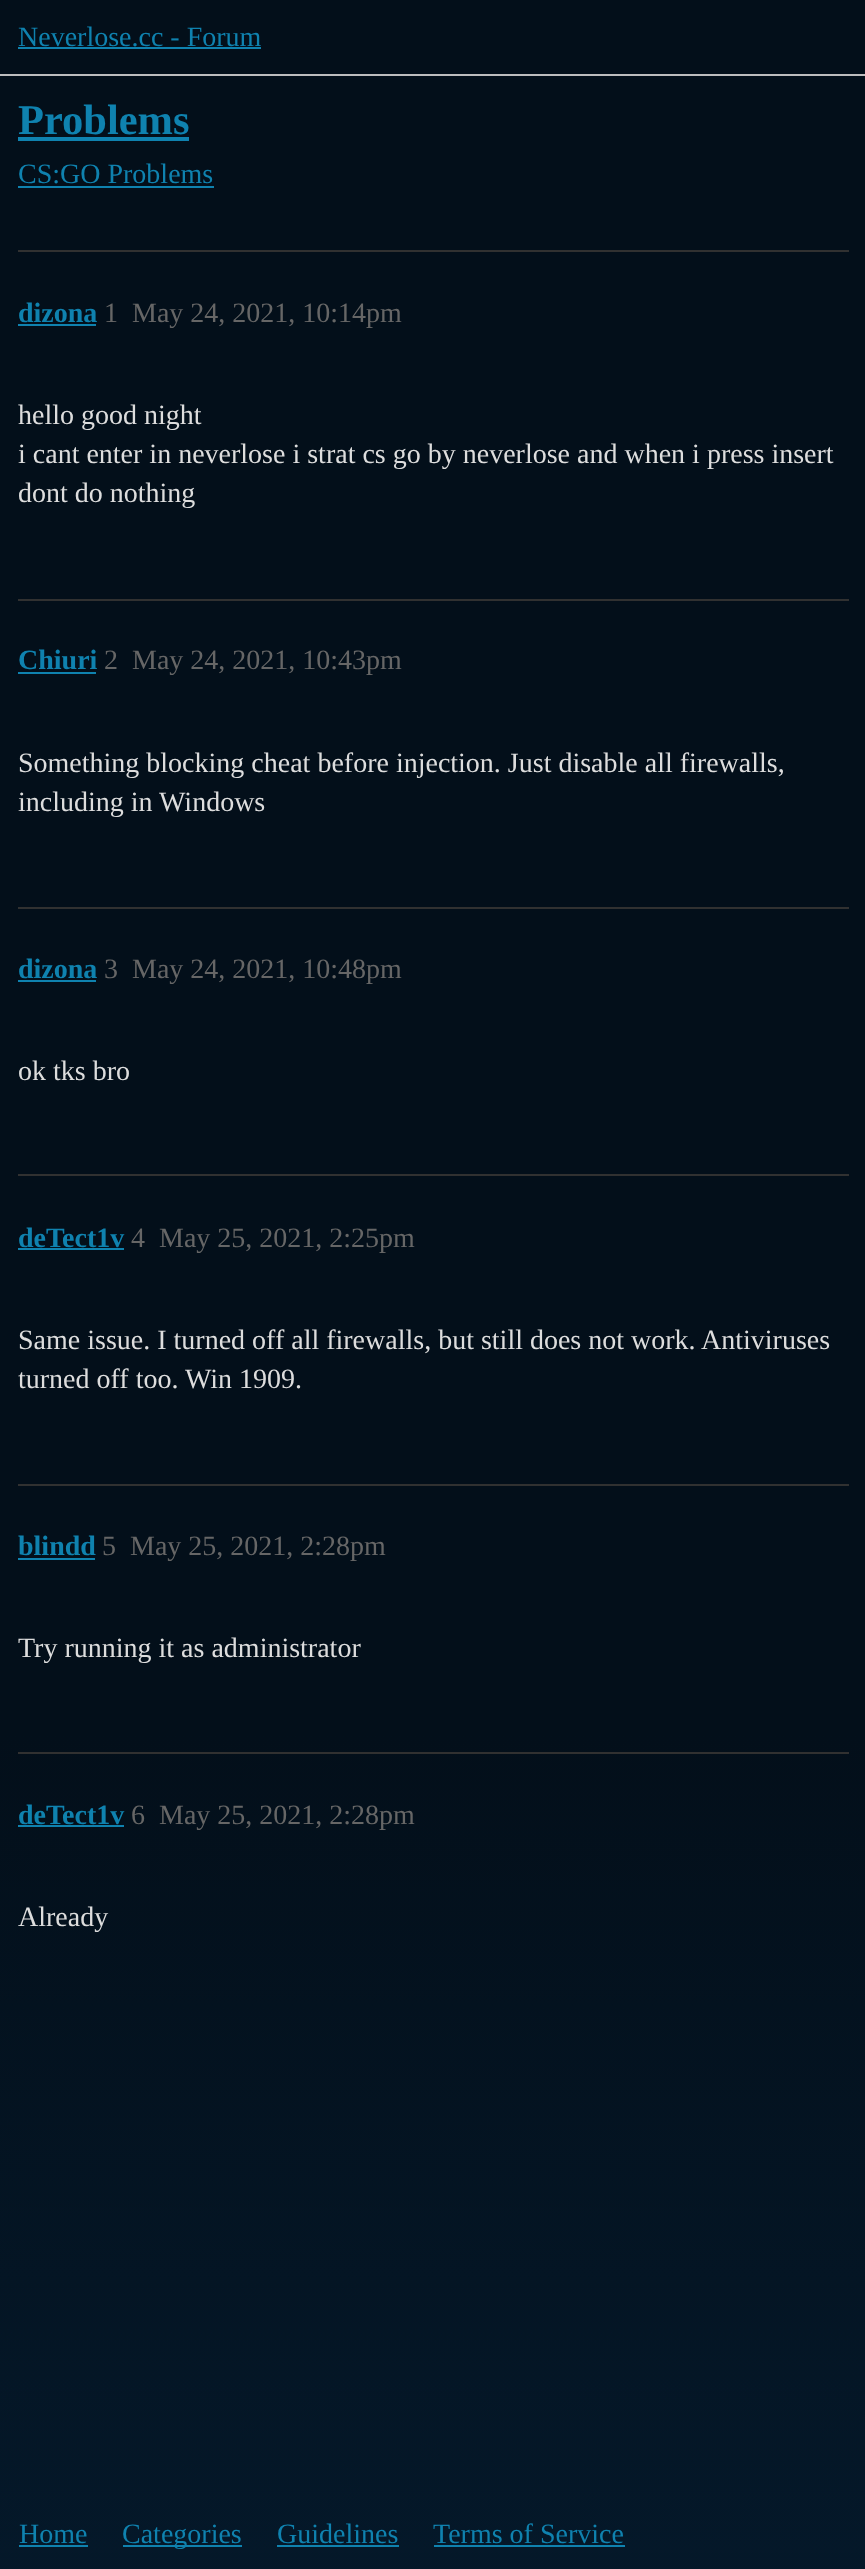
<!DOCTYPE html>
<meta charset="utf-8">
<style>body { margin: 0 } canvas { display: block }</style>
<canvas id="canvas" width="865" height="2569"></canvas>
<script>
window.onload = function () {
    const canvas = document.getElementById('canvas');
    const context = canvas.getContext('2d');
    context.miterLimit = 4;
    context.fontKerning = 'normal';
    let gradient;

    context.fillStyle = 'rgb(255, 255, 255)';
    context.fillRect(0, 0, 865, 2569);
    gradient = context.createLinearGradient(433, 0, 433, 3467);
    gradient.addColorStop(0.3, 'rgb(3, 15, 26)');
    gradient.addColorStop(0.5, 'rgb(3, 15, 26)');
    gradient.addColorStop(1, 'rgb(6, 34, 58)');
    context.fillStyle = gradient;
    context.fillRect(0, 0, 865, 2569);
    context.fillStyle = 'rgb(189, 189, 190)';
    context.fillRect(0, 74, 865, 2);
    context.fillStyle = 'rgb(15, 130, 175)';
    context.fillRect(18, 47, 243, 2);
    context.fillRect(18, 137, 171, 4);
    context.fillRect(18, 186, 196, 2);
    context.fillStyle = 'rgb(49, 49, 49)';
    context.fillRect(18, 250, 831, 2);
    context.fillStyle = 'rgb(15, 130, 175)';
    context.fillRect(18, 324, 78, 2);
    context.fillStyle = 'rgb(49, 49, 49)';
    context.fillRect(18, 599, 831, 2);
    context.fillStyle = 'rgb(15, 130, 175)';
    context.fillRect(18, 672, 78, 2);
    context.fillStyle = 'rgb(49, 49, 49)';
    context.fillRect(18, 907, 831, 2);
    context.fillStyle = 'rgb(15, 130, 175)';
    context.fillRect(18, 980, 78, 2);
    context.fillStyle = 'rgb(49, 49, 49)';
    context.fillRect(18, 1174, 831, 2);
    context.fillStyle = 'rgb(15, 130, 175)';
    context.fillRect(18, 1248, 106, 2);
    context.fillStyle = 'rgb(49, 49, 49)';
    context.fillRect(18, 1484, 831, 2);
    context.fillStyle = 'rgb(15, 130, 175)';
    context.fillRect(18, 1558, 77, 2);
    context.fillStyle = 'rgb(49, 49, 49)';
    context.fillRect(18, 1752, 831, 2);
    context.fillStyle = 'rgb(15, 130, 175)';
    context.fillRect(18, 1825, 106, 2);
    context.fillRect(19, 2545, 69, 2);
    context.fillRect(123, 2545, 119, 2);
    context.fillRect(277, 2545, 122, 2);
    context.fillRect(434, 2545, 191, 2);
    context.font = '28px Liberation Serif';
    context.fillText('Neverlose.cc - Forum', 18, 46);
    context.font = 'bold 42.5px Liberation Serif';
    context.fillText('Problems', 18, 134);
    context.font = '28px Liberation Serif';
    context.fillText('CS:GO Problems', 18, 183);
    context.font = 'bold 28px Liberation Serif';
    context.fillText('dizona', 18, 322);
    context.font = '28px Liberation Serif';
    context.fillStyle = 'rgb(102, 102, 102)';
    context.fillText('1', 104, 322);
    context.fillText('May 24, 2021, 10:14pm', 132, 322);
    context.fillStyle = 'rgb(221, 221, 221)';
    context.fillText('hello good night', 18, 424);
    context.fillText('i cant enter in neverlose i strat cs go by neverlose and when i press insert', 18, 463);
    context.fillText('dont do nothing', 18, 502);
    context.font = 'bold 28px Liberation Serif';
    context.fillStyle = 'rgb(15, 130, 175)';
    context.fillText('Chiuri', 18, 669);
    context.font = '28px Liberation Serif';
    context.fillStyle = 'rgb(102, 102, 102)';
    context.fillText('2', 104, 669);
    context.fillText('May 24, 2021, 10:43pm', 132, 669);
    context.fillStyle = 'rgb(221, 221, 221)';
    context.fillText('Something blocking cheat before injection. Just disable all firewalls,', 18, 772);
    context.fillText('including in Windows', 18, 811);
    context.font = 'bold 28px Liberation Serif';
    context.fillStyle = 'rgb(15, 130, 175)';
    context.fillText('dizona', 18, 978);
    context.font = '28px Liberation Serif';
    context.fillStyle = 'rgb(102, 102, 102)';
    context.fillText('3', 104, 978);
    context.fillText('May 24, 2021, 10:48pm', 132, 978);
    context.fillStyle = 'rgb(221, 221, 221)';
    context.fillText('ok tks bro', 18, 1080);
    context.font = 'bold 28px Liberation Serif';
    context.fillStyle = 'rgb(15, 130, 175)';
    context.fillText('deTect1v', 18, 1247);
    context.font = '28px Liberation Serif';
    context.fillStyle = 'rgb(102, 102, 102)';
    context.fillText('4', 131, 1247);
    context.fillText('May 25, 2021, 2:25pm', 159, 1247);
    context.fillStyle = 'rgb(221, 221, 221)';
    context.fillText('Same issue. I turned off all firewalls, but still does not work. Antiviruses', 18, 1349);
    context.fillText('turned off too. Win 1909.', 18, 1388);
    context.font = 'bold 28px Liberation Serif';
    context.fillStyle = 'rgb(15, 130, 175)';
    context.fillText('blindd', 18, 1555);
    context.font = '28px Liberation Serif';
    context.fillStyle = 'rgb(102, 102, 102)';
    context.fillText('5', 102, 1555);
    context.fillText('May 25, 2021, 2:28pm', 130, 1555);
    context.fillStyle = 'rgb(221, 221, 221)';
    context.fillText('Try running it as administrator', 18, 1657);
    context.font = 'bold 28px Liberation Serif';
    context.fillStyle = 'rgb(15, 130, 175)';
    context.fillText('deTect1v', 18, 1824);
    context.font = '28px Liberation Serif';
    context.fillStyle = 'rgb(102, 102, 102)';
    context.fillText('6', 131, 1824);
    context.fillText('May 25, 2021, 2:28pm', 159, 1824);
    context.fillStyle = 'rgb(221, 221, 221)';
    context.fillText('Already', 18, 1926);
    context.fillStyle = 'rgb(15, 130, 175)';
    context.fillText('Home', 19, 2543);
    context.fillText('Categories', 122, 2543);
    context.fillText('Guidelines', 277, 2543);
    context.fillText('Terms of Service', 433, 2543);
};
</script>
